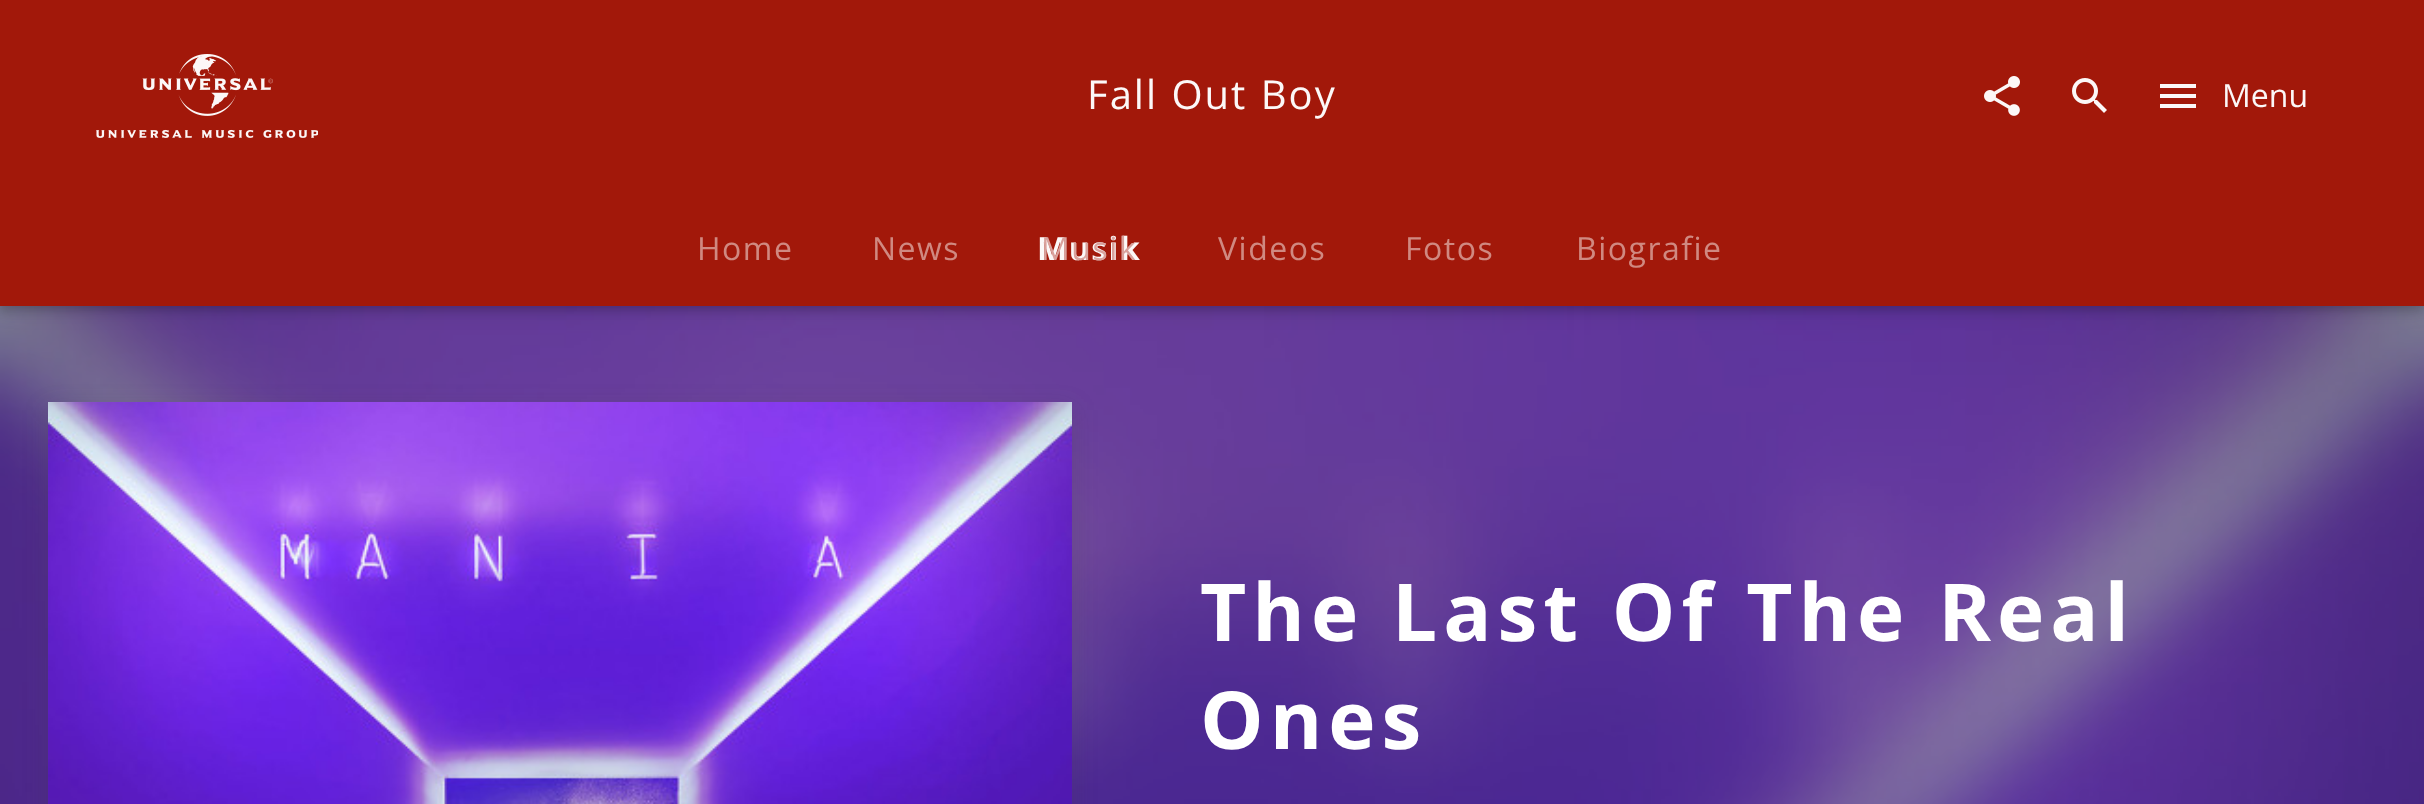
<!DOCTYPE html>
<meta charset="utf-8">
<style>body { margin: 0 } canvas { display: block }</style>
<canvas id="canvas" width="2424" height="804"></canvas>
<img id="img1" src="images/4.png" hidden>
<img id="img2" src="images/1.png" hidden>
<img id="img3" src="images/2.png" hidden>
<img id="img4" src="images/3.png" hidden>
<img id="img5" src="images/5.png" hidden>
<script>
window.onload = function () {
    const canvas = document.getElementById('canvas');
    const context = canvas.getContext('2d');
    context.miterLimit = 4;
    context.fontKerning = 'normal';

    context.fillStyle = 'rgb(255, 255, 255)';
    context.fillRect(0, 0, 2424, 804);
    context.drawImage(document.getElementById('img1'), 0, 306, 2424, 498);
    context.fillStyle = 'rgba(0, 0, 0, 0.12)';
    context.filter = 'blur(10px)';
    context.beginPath();
    context.rect(0, 4, 2424, 306);
    context.fill();
    context.filter = 'none';
    context.fillStyle = 'rgba(0, 0, 0, 0.16)';
    context.filter = 'blur(5px)';
    context.beginPath();
    context.rect(0, 4, 2424, 306);
    context.fill();
    context.filter = 'none';
    context.fillStyle = 'rgb(162, 24, 10)';
    context.fillRect(0, 0, 2424, 306);
    context.drawImage(document.getElementById('img2'), 96, 54, 222, 84);
    context.drawImage(document.getElementById('img3'), 1984, 76, 36, 40);
    context.drawImage(document.getElementById('img4'), 2072, 78, 35, 35);
    context.fillStyle = 'rgb(252, 248, 248)';
    context.beginPath();
    context.moveTo(2160, 108);
    context.lineTo(2196, 108);
    context.lineTo(2196, 104);
    context.lineTo(2160, 104);
    context.closePath();
    context.moveTo(2160, 98);
    context.lineTo(2196, 98);
    context.lineTo(2196, 94);
    context.lineTo(2160, 94);
    context.closePath();
    context.moveTo(2160, 84);
    context.lineTo(2160, 88);
    context.lineTo(2196, 88);
    context.lineTo(2196, 84);
    context.closePath();
    context.fill();
    context.fillStyle = 'rgba(67, 67, 67, 0.23)';
    context.filter = 'blur(12px)';
    context.beginPath();
    context.rect(48, 410, 1024, 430);
    context.fill();
    context.filter = 'none';
    context.drawImage(document.getElementById('img5'), 48, 402, 1024, 402);
    context.letterSpacing = '2px';
    context.wordSpacing = '1px';
    context.font = '40px Open Sans';
    context.fillStyle = 'rgb(252, 248, 248)';
    context.fillText('Fall Out Boy', 1087, 109);
    context.letterSpacing = '0px';
    context.wordSpacing = '0px';
    context.font = '32px Open Sans';
    context.fillText('Menu', 2222, 107);
    context.letterSpacing = '1.5px';
    context.fillStyle = 'rgb(208, 137, 129)';
    context.fillText('Home', 697, 260);
    context.fillText('News', 872, 260);
    context.font = 'bold 32px Open Sans';
    context.fillStyle = 'rgb(252, 248, 248)';
    context.fillText('Musik', 1037, 260);
    context.font = '32px Open Sans';
    context.fillStyle = 'rgb(217, 161, 156)';
    context.fillText('Musik', 1041, 260);
    context.fillStyle = 'rgb(208, 137, 129)';
    context.fillText('Videos', 1218, 260);
    context.fillText('Fotos', 1405, 260);
    context.fillText('Biografie', 1576, 260);
    context.letterSpacing = '6px';
    context.wordSpacing = '1px';
    context.font = 'bold 80px Open Sans';
    context.fillStyle = 'rgb(255, 255, 255)';
    context.fillText('The Last Of The Real', 1200, 641);
    context.wordSpacing = '0px';
    context.fillText('Ones', 1200, 749);
};
</script>
